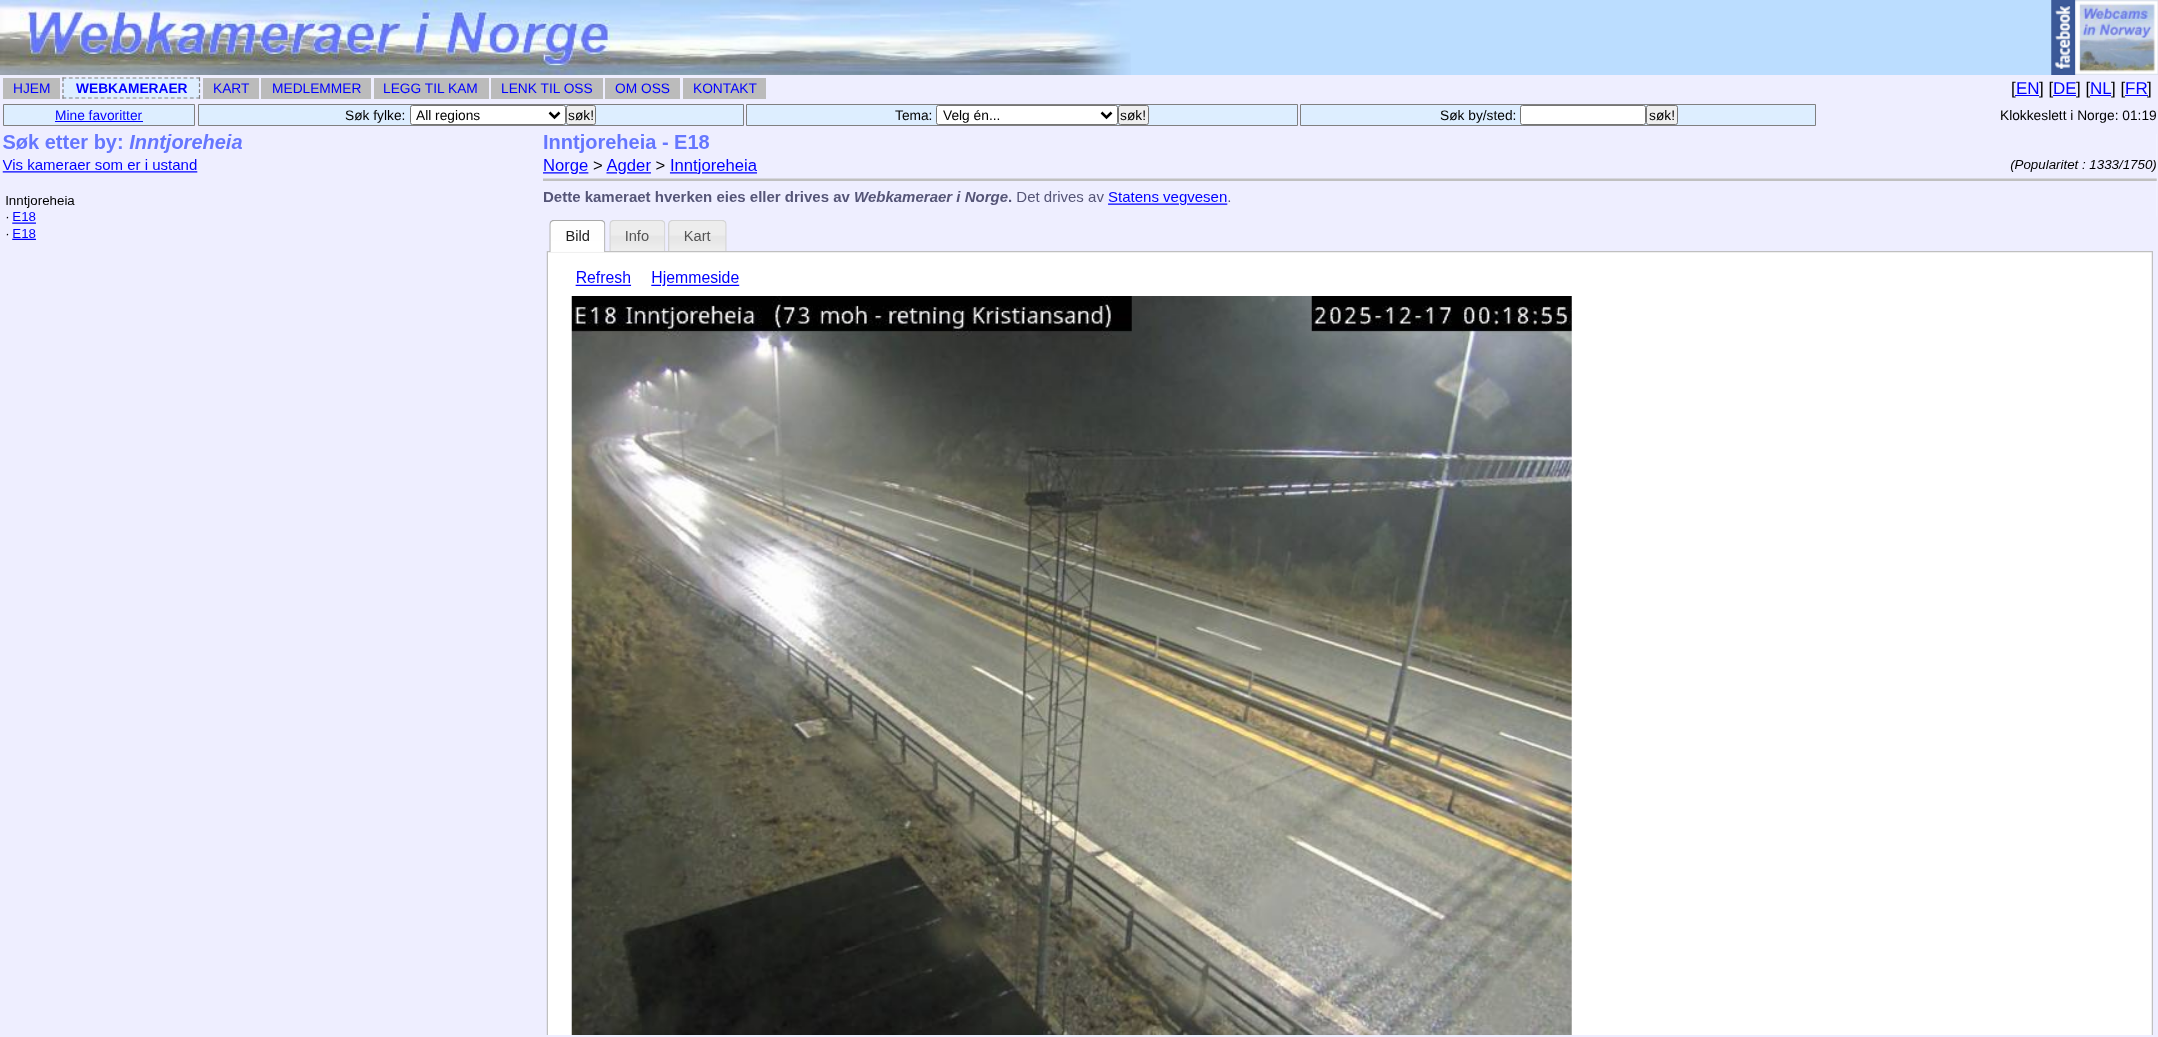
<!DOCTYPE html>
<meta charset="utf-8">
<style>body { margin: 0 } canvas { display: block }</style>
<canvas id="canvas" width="2158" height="1037"></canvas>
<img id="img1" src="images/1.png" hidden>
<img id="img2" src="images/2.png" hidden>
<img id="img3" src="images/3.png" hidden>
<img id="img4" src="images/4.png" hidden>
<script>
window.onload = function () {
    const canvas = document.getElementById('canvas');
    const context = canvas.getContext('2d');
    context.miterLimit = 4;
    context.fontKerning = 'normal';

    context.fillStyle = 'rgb(238, 238, 255)';
    context.fillRect(0, 0, 2158, 1037);
    context.fillStyle = 'rgb(187, 221, 255)';
    context.fillRect(1131, 0, 921, 75);
    context.drawImage(document.getElementById('img1'), 0, 0, 1131, 75);
    context.drawImage(document.getElementById('img2'), 2051, 0, 107, 75);
    context.fillStyle = 'rgb(187, 187, 187)';
    context.fillRect(3, 78, 57, 21);
    context.fillStyle = 'rgb(221, 238, 255)';
    context.fillRect(63, 78, 137, 21);
    context.beginPath();
    context.moveTo(62.5, 78);
    context.lineTo(200, 78);
    context.strokeStyle = 'rgb(128, 128, 128)';
    context.lineWidth = 1.2;
    context.setLineDash([3.75, 2.62]);
    context.stroke();
    context.beginPath();
    context.moveTo(199.5, 77.5);
    context.lineTo(199.5, 99);
    context.setLineDash([3.75, 2.09]);
    context.stroke();
    context.beginPath();
    context.moveTo(62.5, 98);
    context.lineTo(200, 98);
    context.setLineDash([3.75, 2.62]);
    context.stroke();
    context.beginPath();
    context.moveTo(63, 77.5);
    context.lineTo(63, 99);
    context.setLineDash([3.75, 2.09]);
    context.stroke();
    context.fillStyle = 'rgb(187, 187, 187)';
    context.fillRect(203, 78, 56, 21);
    context.fillRect(261, 78, 110, 21);
    context.fillRect(374, 78, 115, 21);
    context.fillRect(491, 78, 112, 21);
    context.fillRect(605, 78, 75, 21);
    context.fillRect(683, 78, 83, 21);
    context.fillStyle = 'rgb(0, 0, 255)';
    context.fillRect(2053, 95, 23, 1);
    context.fillRect(2090, 95, 21, 1);
    context.fillRect(2125, 95, 23, 1);
    context.fillStyle = 'rgb(221, 238, 255)';
    context.beginPath();
    context.rect(3.5, 104.5, 191, 21);
    context.fill();
    context.lineWidth = 1;
    context.setLineDash([]);
    context.stroke();
    context.fillStyle = 'rgb(0, 0, 255)';
    context.fillRect(55, 121, 88, 1);
    context.fillStyle = 'rgb(221, 238, 255)';
    context.beginPath();
    context.rect(198.5, 104.5, 545, 21);
    context.fill();
    context.stroke();
    context.fillStyle = 'rgb(255, 255, 255)';
    context.beginPath();
    context.roundRect(410.5, 105.5, 155, 19, 2);
    context.fill();
    context.strokeStyle = 'rgb(118, 118, 118)';
    context.stroke();
    context.beginPath();
    context.moveTo(549.5, 112.5);
    context.lineTo(554.5, 117.5);
    context.lineTo(559.5, 112.5);
    context.strokeStyle = 'rgb(0, 0, 0)';
    context.lineWidth = 2.5;
    context.stroke();
    context.fillStyle = 'rgb(239, 239, 239)';
    context.beginPath();
    context.roundRect(566.5, 105.5, 29, 19, 2);
    context.fill();
    context.strokeStyle = 'rgb(118, 118, 118)';
    context.lineWidth = 1;
    context.stroke();
    context.fillStyle = 'rgb(221, 238, 255)';
    context.beginPath();
    context.rect(746.5, 104.5, 551, 21);
    context.fill();
    context.strokeStyle = 'rgb(128, 128, 128)';
    context.stroke();
    context.fillStyle = 'rgb(255, 255, 255)';
    context.beginPath();
    context.roundRect(936.5, 105.5, 181, 19, 2);
    context.fill();
    context.strokeStyle = 'rgb(118, 118, 118)';
    context.stroke();
    context.beginPath();
    context.moveTo(1101.5, 112.5);
    context.lineTo(1106.5, 117.5);
    context.lineTo(1111.5, 112.5);
    context.strokeStyle = 'rgb(0, 0, 0)';
    context.lineWidth = 2.5;
    context.stroke();
    context.fillStyle = 'rgb(239, 239, 239)';
    context.beginPath();
    context.roundRect(1118.5, 105.5, 30, 19, 2);
    context.fill();
    context.strokeStyle = 'rgb(118, 118, 118)';
    context.lineWidth = 1;
    context.stroke();
    context.fillStyle = 'rgb(221, 238, 255)';
    context.beginPath();
    context.rect(1300.5, 104.5, 515, 21);
    context.fill();
    context.strokeStyle = 'rgb(128, 128, 128)';
    context.stroke();
    context.fillStyle = 'rgb(255, 255, 255)';
    context.beginPath();
    context.roundRect(1520.5, 105.5, 125, 19, 2);
    context.fill();
    context.strokeStyle = 'rgb(118, 118, 118)';
    context.stroke();
    context.fillStyle = 'rgb(239, 239, 239)';
    context.beginPath();
    context.roundRect(1646.5, 105.5, 31, 19, 2);
    context.fill();
    context.stroke();
    context.drawImage(document.getElementById('img3'), 2, 134, 240, 106);
    context.drawImage(document.getElementById('img4'), 543, 134, 1614, 901);
    context.font = '13.75px Liberation Sans';
    context.fillStyle = 'rgb(0, 0, 255)';
    context.fillText('HJEM', 13, 93);
    context.font = 'bold 13.75px Liberation Sans';
    context.fillText('WEBKAMERAER', 76, 93);
    context.font = '13.75px Liberation Sans';
    context.fillText('KART', 213, 93);
    context.fillText('MEDLEMMER', 272, 93);
    context.fillText('LEGG TIL KAM', 383, 93);
    context.fillText('LENK TIL OSS', 501, 93);
    context.fillText('OM OSS', 615, 93);
    context.fillText('KONTAKT', 693, 93);
    context.font = '17px Liberation Sans';
    context.fillStyle = 'rgb(0, 0, 0)';
    context.fillText('[', 2011, 94);
    context.fillStyle = 'rgb(0, 0, 255)';
    context.fillText('EN', 2016, 94);
    context.fillRect(2015, 95, 24, 1);
    context.fillStyle = 'rgb(0, 0, 0)';
    context.fillText('] [', 2039, 94);
    context.fillStyle = 'rgb(0, 0, 255)';
    context.fillText('DE', 2053, 94);
    context.fillStyle = 'rgb(0, 0, 0)';
    context.fillText('] [', 2076, 94);
    context.fillStyle = 'rgb(0, 0, 255)';
    context.fillText('NL', 2090, 94);
    context.fillStyle = 'rgb(0, 0, 0)';
    context.fillText('] [', 2111, 94);
    context.fillStyle = 'rgb(0, 0, 255)';
    context.fillText('FR', 2125, 94);
    context.fillStyle = 'rgb(0, 0, 0)';
    context.fillText(']', 2147, 94);
    context.font = '13.75px Liberation Sans';
    context.fillStyle = 'rgb(0, 0, 255)';
    context.fillText('Mine favoritter', 55, 120);
    context.fillStyle = 'rgb(0, 0, 0)';
    context.fillText('Søk fylke:', 345, 120);
    context.fillText('All regions', 416, 120);
    context.fillText('søk!', 568, 120);
    context.fillText('Tema:', 895, 120);
    context.fillText('Velg én...', 943, 120);
    context.fillText('søk!', 1120, 120);
    context.fillText('Søk by/sted:', 1440, 120);
    context.fillText('søk!', 1649, 120);
    context.fillText('Klokkeslett i Norge: 01:19', 2000, 120);
};
</script>
